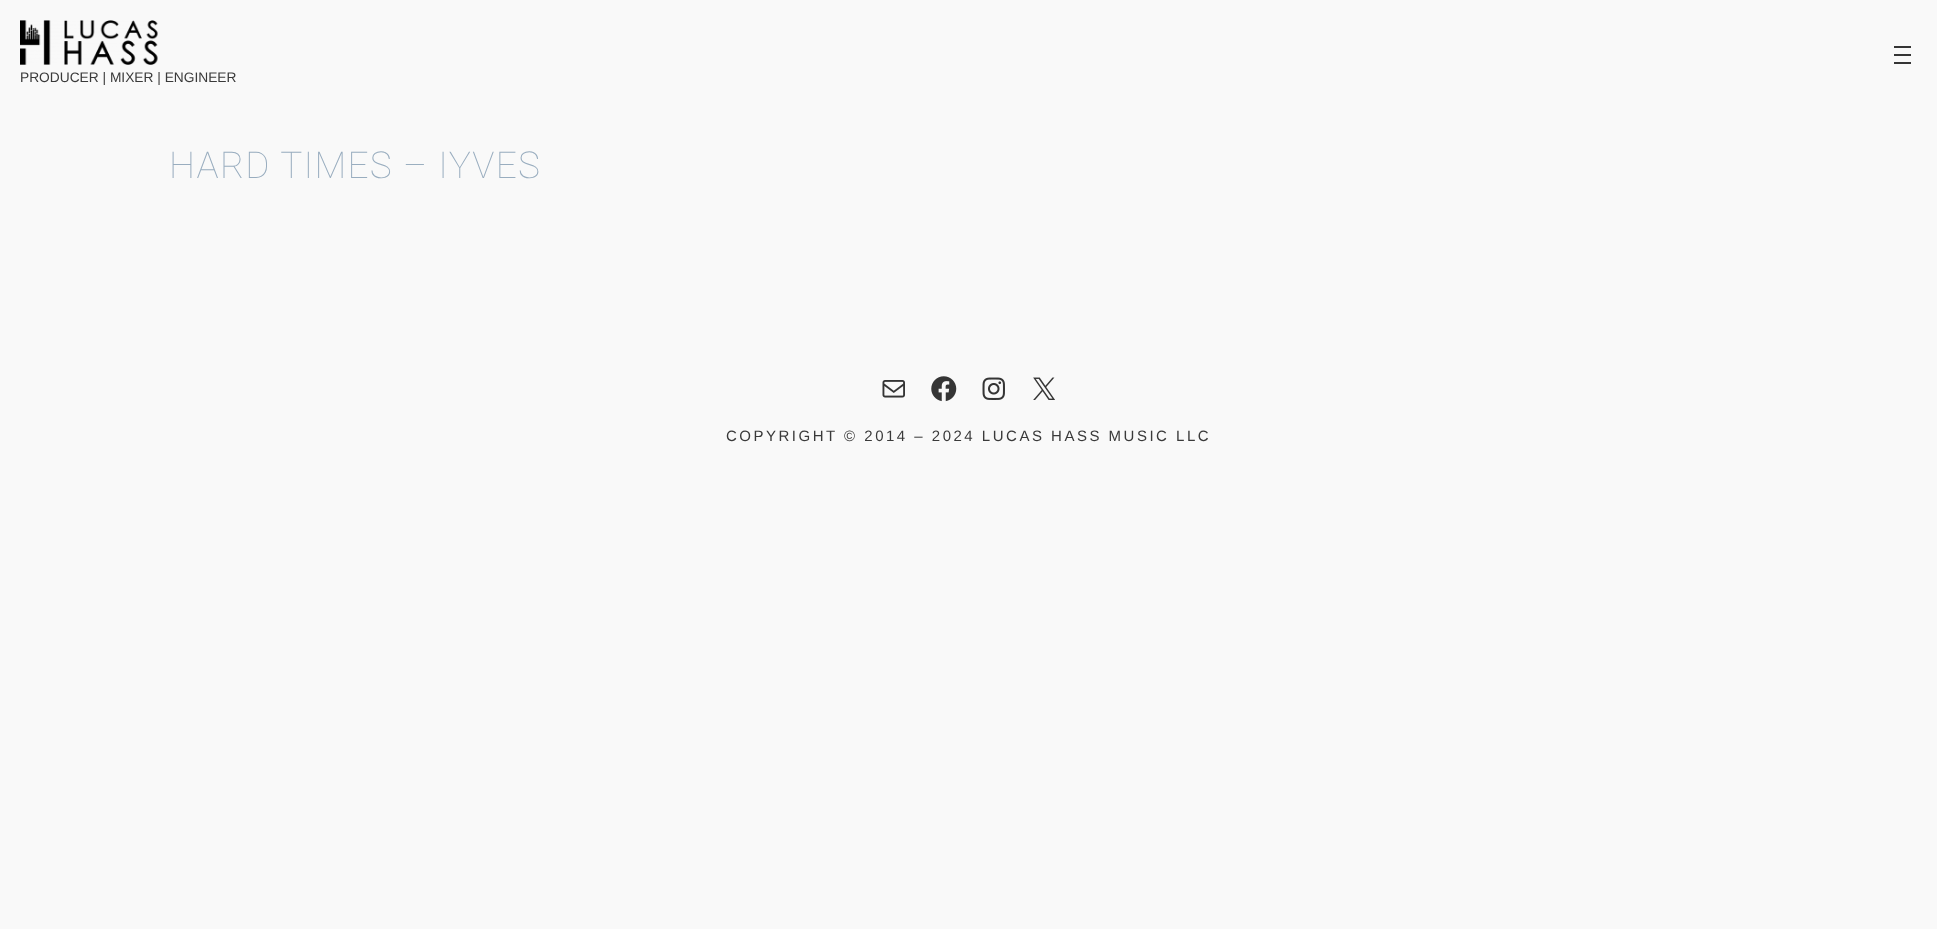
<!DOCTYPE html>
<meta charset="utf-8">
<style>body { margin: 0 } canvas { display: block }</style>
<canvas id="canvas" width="1937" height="929"></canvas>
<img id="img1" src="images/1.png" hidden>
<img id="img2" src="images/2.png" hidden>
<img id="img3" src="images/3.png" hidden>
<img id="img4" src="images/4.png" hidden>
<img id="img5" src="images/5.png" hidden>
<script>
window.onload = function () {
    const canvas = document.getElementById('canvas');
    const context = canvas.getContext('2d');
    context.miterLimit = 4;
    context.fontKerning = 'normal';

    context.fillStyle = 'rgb(249, 249, 249)';
    context.fillRect(0, 0, 1937, 929);
    context.fillStyle = 'rgb(53, 53, 53)';
    context.fillRect(1894, 46, 17, 2);
    context.fillRect(1894, 54, 17, 2);
    context.fillRect(1894, 62, 17, 2);
    context.drawImage(document.getElementById('img1'), 20, 20, 138, 45);
    context.drawImage(document.getElementById('img2'), 882, 380, 23, 18);
    context.drawImage(document.getElementById('img3'), 931, 376, 26, 26);
    context.drawImage(document.getElementById('img4'), 982, 377, 23, 23);
    context.drawImage(document.getElementById('img5'), 1033, 377, 22, 23);
    context.font = '13.75px Liberation Sans';
    context.fillStyle = 'rgb(58, 58, 58)';
    context.fillText('PRODUCER | MIXER | ENGINEER', 20, 82);
    context.letterSpacing = '1.25px';
    context.font = '100 37px Roboto';
    context.fillStyle = 'rgb(153, 173, 191)';
    context.fillText('HARD TIMES – IYVES', 169, 178);
    context.letterSpacing = '2.5px';
    context.font = '15px Liberation Sans';
    context.fillStyle = 'rgb(58, 58, 58)';
    context.fillText('COPYRIGHT © 2014 – 2024 LUCAS HASS MUSIC LLC', 726, 441);
};
</script>
